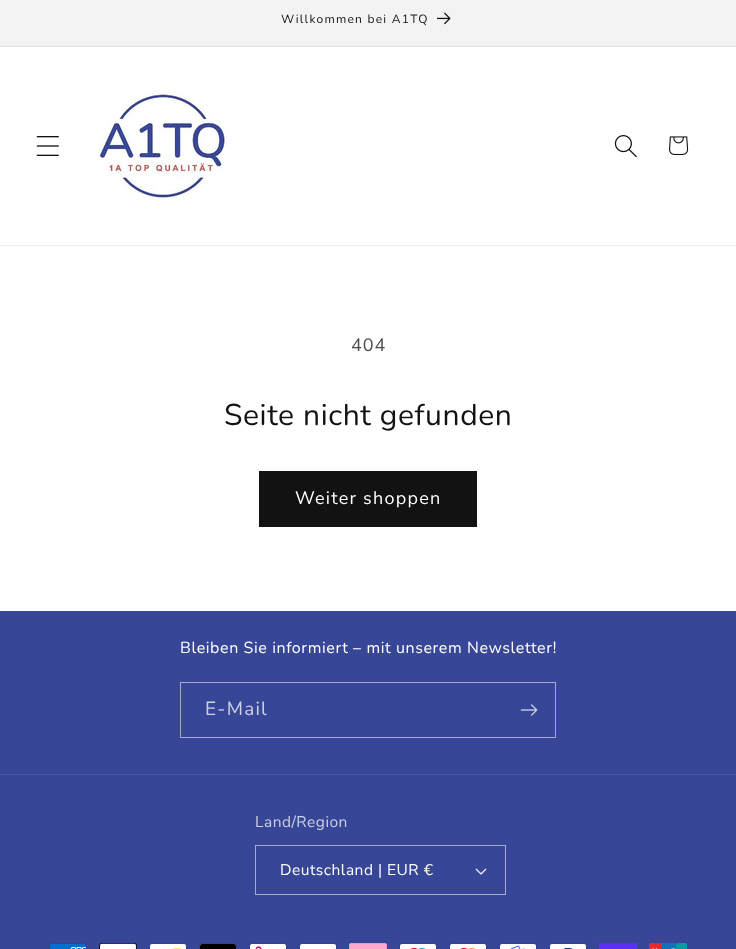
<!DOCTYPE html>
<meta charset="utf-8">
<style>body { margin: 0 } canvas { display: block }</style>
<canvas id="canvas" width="736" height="949"></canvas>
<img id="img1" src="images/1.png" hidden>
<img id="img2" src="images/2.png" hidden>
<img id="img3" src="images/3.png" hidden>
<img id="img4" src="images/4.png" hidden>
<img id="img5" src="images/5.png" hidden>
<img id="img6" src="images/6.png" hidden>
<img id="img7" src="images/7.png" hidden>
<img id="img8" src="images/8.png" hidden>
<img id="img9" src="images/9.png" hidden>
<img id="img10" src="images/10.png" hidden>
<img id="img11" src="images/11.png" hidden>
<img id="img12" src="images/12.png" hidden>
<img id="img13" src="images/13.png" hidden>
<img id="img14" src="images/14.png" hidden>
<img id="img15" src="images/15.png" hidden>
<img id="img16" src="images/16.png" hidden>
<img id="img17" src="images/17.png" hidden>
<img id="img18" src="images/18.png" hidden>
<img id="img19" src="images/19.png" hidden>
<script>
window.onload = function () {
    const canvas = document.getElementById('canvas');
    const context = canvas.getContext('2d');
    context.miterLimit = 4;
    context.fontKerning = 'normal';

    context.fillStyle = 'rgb(255, 255, 255)';
    context.fillRect(0, 0, 736, 949);
    context.fillStyle = 'rgb(243, 243, 243)';
    context.fillRect(0, 0, 736, 46);
    context.fillStyle = 'rgb(225, 225, 225)';
    context.fillRect(0, 46, 736, 1);
    context.drawImage(document.getElementById('img1'), 437, 12, 14, 13);
    context.fillStyle = 'rgb(236, 236, 236)';
    context.fillRect(0, 245, 736, 1);
    context.drawImage(document.getElementById('img2'), 36, 136, 23, 20);
    context.drawImage(document.getElementById('img3'), 98, 91, 129, 111);
    context.drawImage(document.getElementById('img4'), 614, 135, 23, 23);
    context.drawImage(document.getElementById('img5'), 669, 136, 20, 19);
    context.fillStyle = 'rgb(18, 18, 18)';
    context.fillRect(259, 471, 218, 56);
    context.fillStyle = 'rgb(56, 70, 151)';
    context.fillRect(0, 611, 736, 338);
    context.strokeStyle = 'rgb(165, 172, 208)';
    context.strokeRect(180.5, 682.5, 375, 55);
    context.drawImage(document.getElementById('img6'), 520, 704, 18, 12);
    context.fillStyle = 'rgb(72, 85, 159)';
    context.fillRect(0, 774, 736, 1);
    context.drawImage(document.getElementById('img7'), 475, 868, 12, 7);
    context.strokeRect(255.5, 845.5, 250, 49);
    context.drawImage(document.getElementById('img8'), 49, 943, 38, 6);
    context.drawImage(document.getElementById('img9'), 99, 943, 38, 6);
    context.drawImage(document.getElementById('img10'), 149, 943, 38, 6);
    context.drawImage(document.getElementById('img11'), 199, 943, 38, 6);
    context.drawImage(document.getElementById('img12'), 249, 943, 38, 6);
    context.drawImage(document.getElementById('img13'), 299, 943, 38, 6);
    context.drawImage(document.getElementById('img14'), 349, 943, 38, 6);
    context.drawImage(document.getElementById('img15'), 399, 943, 38, 6);
    context.drawImage(document.getElementById('img16'), 449, 943, 38, 6);
    context.drawImage(document.getElementById('img17'), 499, 943, 38, 6);
    context.drawImage(document.getElementById('img18'), 549, 943, 38, 6);
    context.fillStyle = 'rgb(90, 49, 244)';
    context.fillRect(599, 943, 38, 6);
    context.drawImage(document.getElementById('img19'), 649, 943, 38, 6);
    context.letterSpacing = '1.25px';
    context.font = '12px Nunito';
    context.fillStyle = 'rgb(18, 18, 18)';
    context.fillText('Willkommen bei A1TQ', 281, 23);
    context.letterSpacing = '1px';
    context.font = '18px Nunito Sans';
    context.fillStyle = 'rgb(77, 77, 77)';
    context.fillText('404', 351, 351);
    context.letterSpacing = '0.6px';
    context.font = '30px Nunito';
    context.fillStyle = 'rgb(18, 18, 18)';
    context.fillText('Seite nicht gefunden', 224, 425);
    context.letterSpacing = '1.25px';
    context.font = '18px Nunito Sans';
    context.fillStyle = 'rgb(255, 255, 255)';
    context.fillText('Weiter shoppen', 295, 504);
    context.letterSpacing = '0.6px';
    context.font = '16px Nunito';
    context.fillText('Bleiben Sie informiert – mit unserem Newsletter!', 180, 653);
    context.letterSpacing = '1.25px';
    context.font = '19px Nunito Sans';
    context.fillStyle = 'rgb(205, 209, 229)';
    context.fillText('E-Mail', 205, 715);
    context.letterSpacing = '0.5px';
    context.font = '15.5px Nunito Sans';
    context.fillText('Land/Region', 255, 827);
    context.fillStyle = 'rgb(255, 255, 255)';
    context.fillText('Deutschland | EUR €', 280, 875);
};
</script>
